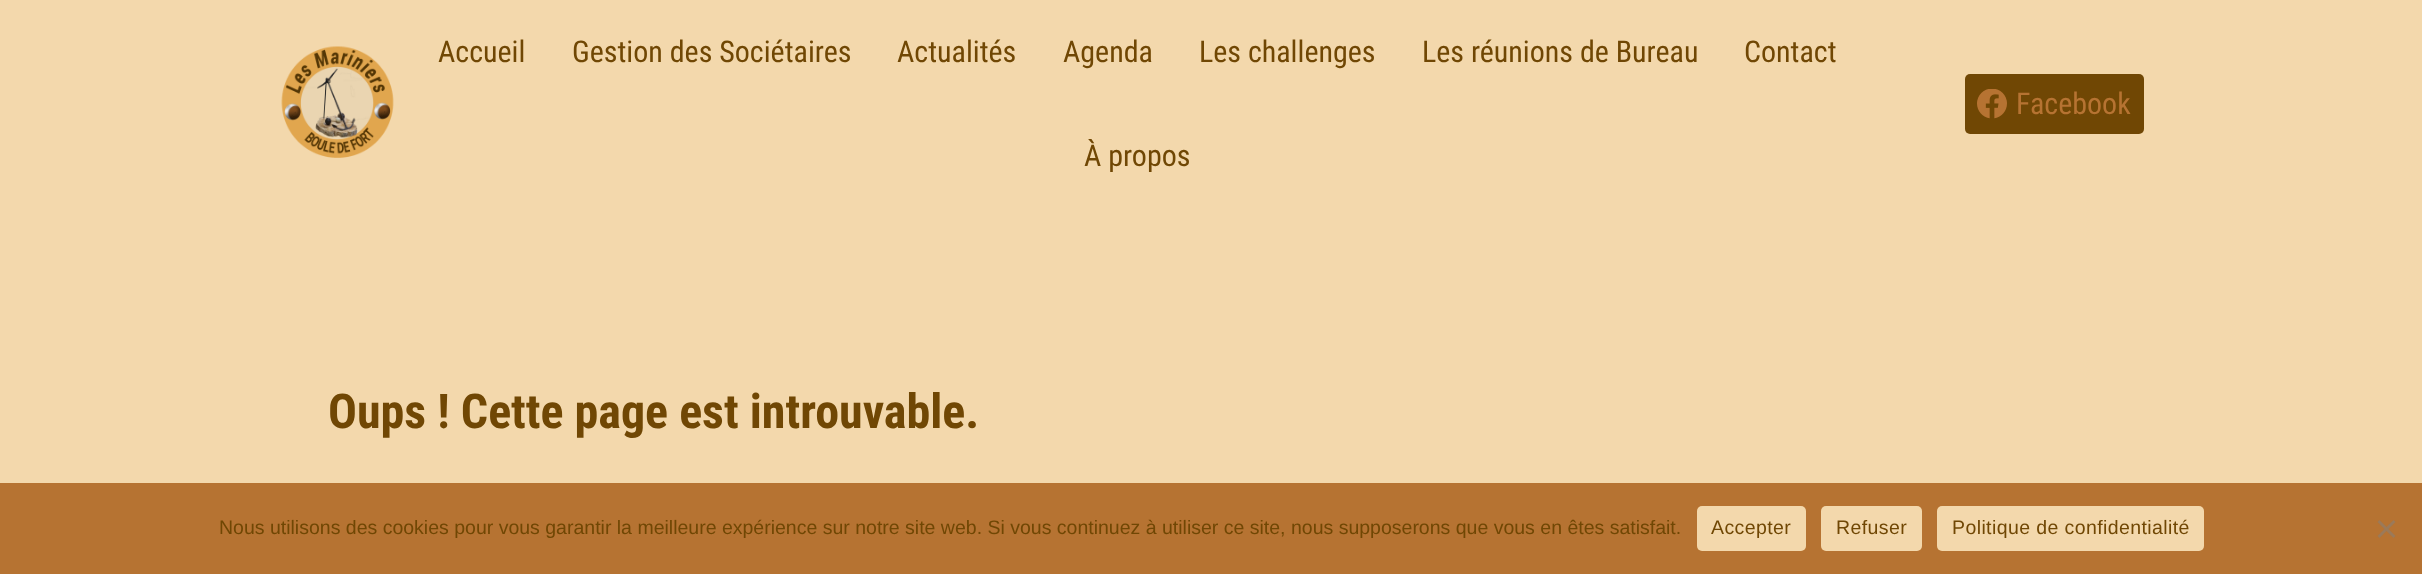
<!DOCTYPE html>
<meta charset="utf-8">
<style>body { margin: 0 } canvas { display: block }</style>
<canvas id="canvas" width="2422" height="574"></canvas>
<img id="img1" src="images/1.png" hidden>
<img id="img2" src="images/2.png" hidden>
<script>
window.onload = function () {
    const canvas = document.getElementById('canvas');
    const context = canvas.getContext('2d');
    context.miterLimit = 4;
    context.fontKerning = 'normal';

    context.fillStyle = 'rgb(243, 216, 172)';
    context.fillRect(0, 0, 2422, 574);
    context.drawImage(document.getElementById('img1'), 281, 46, 113, 112);
    context.fillStyle = 'rgb(112, 71, 4)';
    context.beginPath();
    context.roundRect(1965, 74, 179, 60, 5);
    context.fill();
    context.drawImage(document.getElementById('img2'), 1977, 89, 30, 30);
    context.fillStyle = 'rgb(182, 115, 50)';
    context.fillRect(0, 483, 2422, 91);
    context.fillStyle = 'rgb(243, 216, 172)';
    context.beginPath();
    context.roundRect(1697, 506, 109, 45, 5);
    context.fill();
    context.beginPath();
    context.roundRect(1821, 506, 101, 45, 5);
    context.fill();
    context.beginPath();
    context.roundRect(1937, 506, 267, 45, 5);
    context.fill();
    context.fillStyle = 'rgb(155, 122, 89)';
    context.beginPath();
    context.moveTo(2393.5, 520);
    context.lineTo(2395.5, 522);
    context.lineTo(2379.5, 538);
    context.lineTo(2377.5, 536);
    context.closePath();
    context.fill();
    context.beginPath();
    context.moveTo(2377.5, 522);
    context.lineTo(2379.5, 520);
    context.lineTo(2395.5, 536);
    context.lineTo(2393.5, 538);
    context.closePath();
    context.fill();
    context.font = '30px Roboto Condensed';
    context.fillStyle = 'rgb(112, 71, 4)';
    context.fillText('Accueil', 438, 62);
    context.fillText('Gestion des Sociétaires', 572, 62);
    context.fillText('Actualités', 897, 62);
    context.fillText('Agenda', 1063, 62);
    context.fillText('Les challenges', 1199, 62);
    context.fillText('Les réunions de Bureau', 1422, 62);
    context.fillText('Contact', 1744, 62);
    context.fillText('À propos', 1084, 166);
    context.fillStyle = 'rgb(182, 115, 50)';
    context.fillText('Facebook', 2016, 114);
    context.font = 'bold 48px Roboto Condensed';
    context.fillStyle = 'rgb(112, 71, 4)';
    context.fillText('Oups ! Cette page est introuvable.', 328, 428);
    context.font = '19.5px Liberation Sans';
    context.fillText('Nous utilisons des cookies pour vous garantir la meilleure expérience sur notre site web. Si vous continuez à utiliser ce site, nous supposerons que vous en êtes satisfait.', 219, 534);
    context.letterSpacing = '0.4px';
    context.fillText('Accepter', 1711, 534);
    context.fillText('Refuser', 1836, 534);
    context.fillText('Politique de confidentialité', 1952, 534);
};
</script>
